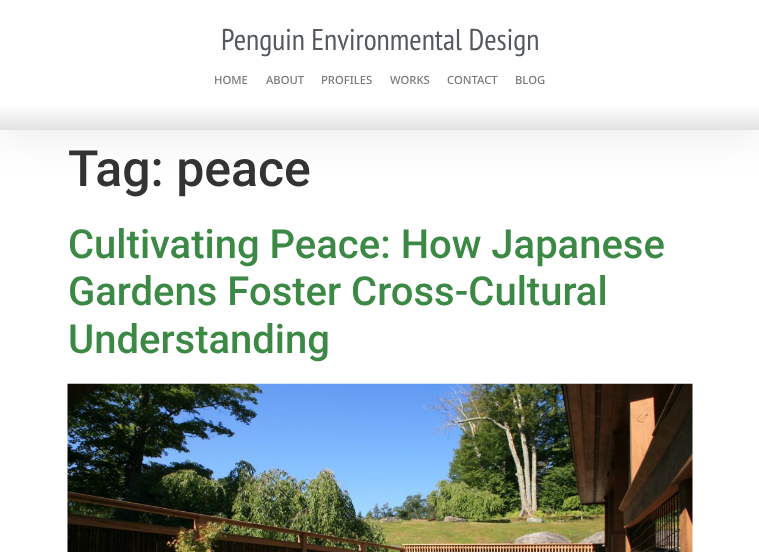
<!DOCTYPE html>
<meta charset="utf-8">
<style>body { margin: 0 } canvas { display: block }</style>
<canvas id="canvas" width="759" height="552"></canvas>
<img id="img1" src="images/1.png" hidden>
<script>
window.onload = function () {
    const canvas = document.getElementById('canvas');
    const context = canvas.getContext('2d');
    context.miterLimit = 4;
    context.fontKerning = 'normal';
    let gradient;

    context.fillStyle = 'rgb(255, 255, 255)';
    context.fillRect(0, 0, 759, 552);
    context.fillStyle = 'rgba(0, 0, 0, 0.1)';
    context.filter = 'blur(24px)';
    context.beginPath();
    context.rect(0, 0, 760, 130);
    context.fill();
    context.filter = 'none';
    gradient = context.createLinearGradient(380, 0, 380, 130);
    gradient.addColorStop(0.8, 'rgb(255, 255, 255)');
    gradient.addColorStop(1, 'rgb(227, 227, 227)');
    context.fillStyle = gradient;
    context.fillRect(0, 0, 759, 130);
    context.drawImage(document.getElementById('img1'), 67, 383, 626, 169);
    context.font = '30px PT Sans Narrow';
    context.fillStyle = 'rgb(84, 89, 95)';
    context.fillText('Penguin Environmental Design', 221, 50);
    context.font = '500 11.25px Noto Sans';
    context.fillStyle = 'rgb(122, 122, 122)';
    context.fillText('HOME', 214, 84);
    context.fillText('ABOUT', 266, 84);
    context.fillText('PROFILES', 321, 84);
    context.fillText('WORKS', 390, 84);
    context.fillText('CONTACT', 447, 84);
    context.fillText('BLOG', 515, 84);
    context.font = '500 50px Roboto';
    context.fillStyle = 'rgb(51, 51, 51)';
    context.fillText('Tag: peace', 68, 186);
    context.font = '500 40px Roboto';
    context.fillStyle = 'rgb(60, 137, 70)';
    context.fillText('Cultivating Peace: How Japanese', 68, 258);
    context.fillText('Gardens Foster Cross-Cultural', 68, 305);
    context.fillText('Understanding', 68, 353);
};
</script>
